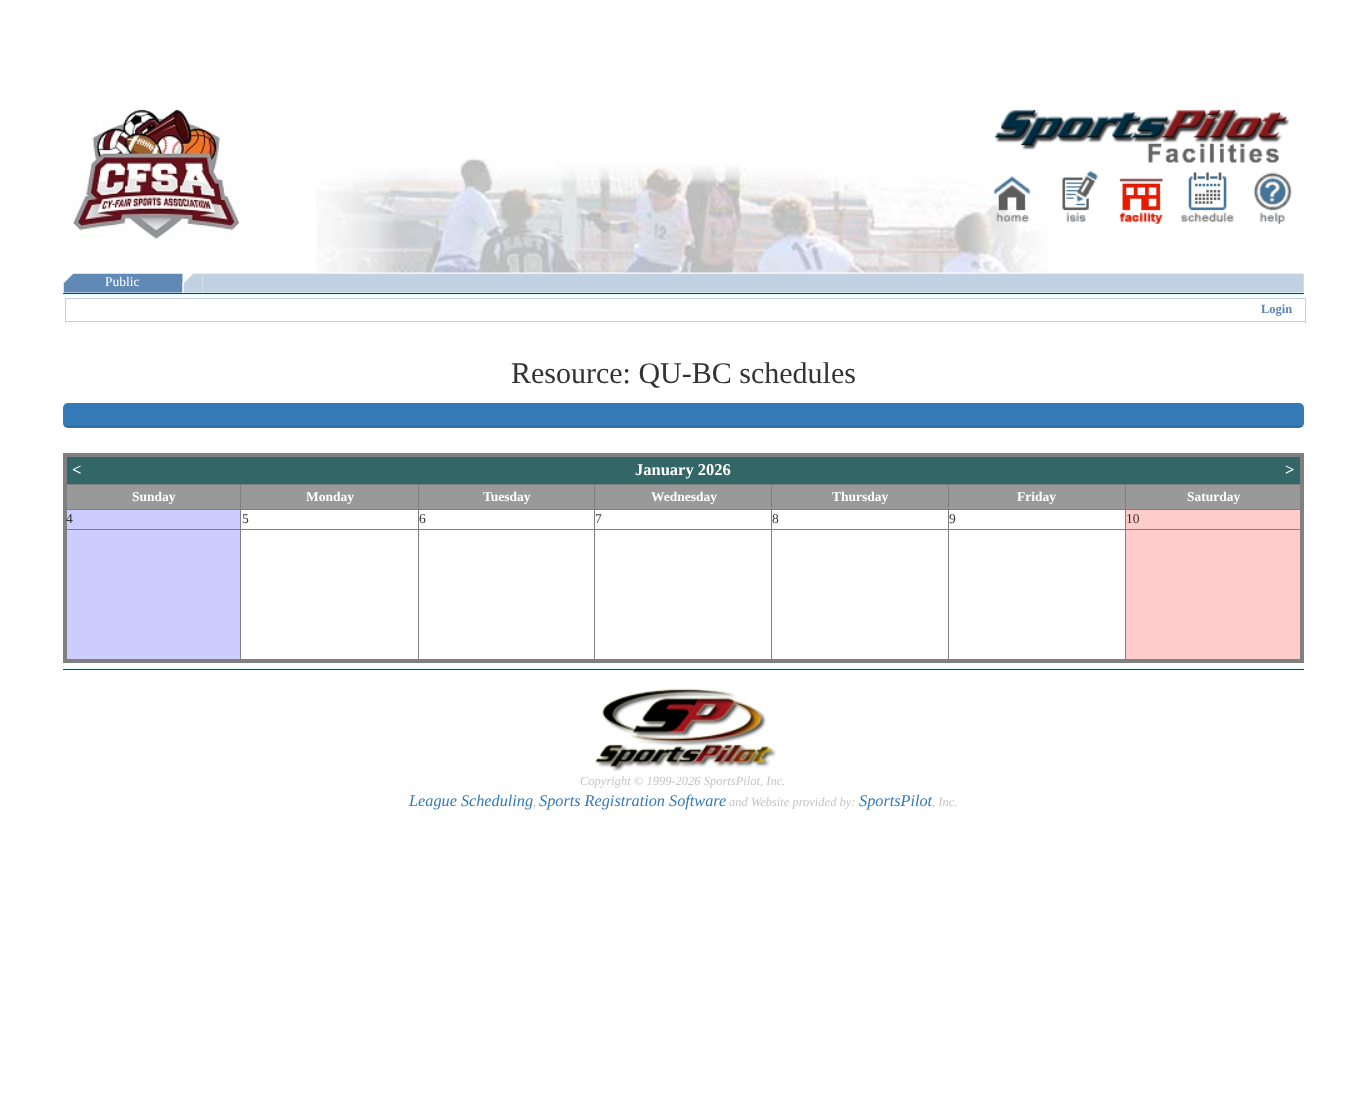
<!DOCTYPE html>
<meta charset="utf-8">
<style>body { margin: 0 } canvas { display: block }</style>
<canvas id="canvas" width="1366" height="1102"></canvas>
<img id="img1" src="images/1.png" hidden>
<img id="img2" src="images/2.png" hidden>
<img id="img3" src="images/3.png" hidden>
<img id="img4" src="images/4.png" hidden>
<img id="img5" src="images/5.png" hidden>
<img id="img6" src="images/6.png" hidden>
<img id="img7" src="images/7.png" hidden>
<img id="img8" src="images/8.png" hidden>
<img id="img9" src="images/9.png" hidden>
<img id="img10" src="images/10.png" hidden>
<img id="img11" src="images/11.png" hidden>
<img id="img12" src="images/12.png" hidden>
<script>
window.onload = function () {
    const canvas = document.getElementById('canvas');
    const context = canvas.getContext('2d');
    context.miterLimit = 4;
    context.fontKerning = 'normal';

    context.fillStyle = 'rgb(255, 255, 255)';
    context.fillRect(0, 0, 1366, 1102);
    context.drawImage(document.getElementById('img1'), 316, 157, 732, 116);
    context.fillStyle = 'rgb(222, 255, 255)';
    context.fillRect(63, 294, 1242, 1);
    context.drawImage(document.getElementById('img2'), 68, 107, 172, 132);
    context.drawImage(document.getElementById('img3'), 994, 109, 296, 54);
    context.drawImage(document.getElementById('img4'), 993, 176, 38, 47);
    context.drawImage(document.getElementById('img5'), 1062, 171, 36, 52);
    context.drawImage(document.getElementById('img6'), 1119, 178, 44, 46);
    context.drawImage(document.getElementById('img7'), 1181, 172, 53, 51);
    context.drawImage(document.getElementById('img8'), 1253, 172, 39, 52);
    context.fillStyle = 'rgb(28, 63, 103)';
    context.fillRect(63, 293, 1241, 1);
    context.drawImage(document.getElementById('img9'), 63, 273, 120, 20);
    context.drawImage(document.getElementById('img10'), 182, 273, 21, 20);
    context.drawImage(document.getElementById('img11'), 202, 272, 1102, 21);
    context.fillStyle = 'rgb(194, 209, 226)';
    context.fillRect(65, 298, 1241, 1);
    context.fillRect(1305, 298, 1, 25);
    context.fillRect(65, 321, 1241, 1);
    context.fillRect(65, 298, 1, 25);
    context.fillStyle = 'rgb(51, 122, 183)';
    context.beginPath();
    context.roundRect(63, 403, 1241, 25, 5);
    context.fill();
    context.save();
    context.beginPath();
    context.roundRect(63, 403, 1241, 25, 5);
    context.clip();
    context.fillStyle = 'rgba(0, 0, 0, 0.15)';
    context.fillRect(63, 426, 1241, 1);
    context.restore();
    context.fillStyle = 'rgb(128, 128, 128)';
    context.fillRect(63, 453, 1241, 4);
    context.fillRect(1125, 529, 1, 132);
    context.fillRect(1125, 529, 178, 1);
    context.fillRect(1125, 509, 1, 21);
    context.fillRect(1125, 509, 178, 1);
    context.fillRect(1125, 484, 1, 26);
    context.fillRect(948, 529, 1, 132);
    context.fillRect(948, 529, 178, 1);
    context.fillRect(948, 509, 1, 21);
    context.fillRect(948, 509, 178, 1);
    context.fillRect(948, 484, 1, 26);
    context.fillRect(771, 529, 1, 132);
    context.fillRect(771, 529, 178, 1);
    context.fillRect(771, 509, 1, 21);
    context.fillRect(771, 509, 178, 1);
    context.fillRect(771, 484, 1, 26);
    context.fillRect(594, 529, 1, 132);
    context.fillRect(594, 529, 179, 1);
    context.fillRect(594, 509, 1, 21);
    context.fillRect(594, 509, 179, 1);
    context.fillRect(594, 484, 1, 26);
    context.fillRect(418, 529, 1, 132);
    context.fillRect(418, 529, 177, 1);
    context.fillRect(418, 509, 1, 21);
    context.fillRect(418, 509, 177, 1);
    context.fillRect(418, 484, 1, 26);
    context.fillRect(240, 529, 1, 132);
    context.fillRect(240, 529, 179, 1);
    context.fillRect(240, 509, 1, 21);
    context.fillRect(240, 509, 179, 1);
    context.fillRect(240, 484, 1, 26);
    context.fillRect(64, 484, 1239, 1);
    context.fillRect(1300, 453, 4, 210);
    context.fillRect(63, 659, 1241, 4);
    context.fillRect(64, 509, 177, 1);
    context.fillRect(64, 529, 177, 1);
    context.fillRect(63, 453, 4, 210);
    context.fillStyle = 'rgb(51, 102, 102)';
    context.fillRect(67, 457, 1233, 27);
    context.fillStyle = 'rgb(153, 153, 153)';
    context.fillRect(67, 485, 173, 24);
    context.fillRect(241, 485, 177, 24);
    context.fillRect(419, 485, 175, 24);
    context.fillRect(595, 485, 176, 24);
    context.fillRect(772, 485, 176, 24);
    context.fillRect(949, 485, 176, 24);
    context.fillRect(1126, 485, 174, 24);
    context.fillStyle = 'rgb(204, 204, 255)';
    context.fillRect(67, 510, 173, 19);
    context.fillStyle = 'rgb(255, 204, 204)';
    context.fillRect(1126, 510, 174, 19);
    context.fillStyle = 'rgb(204, 204, 255)';
    context.fillRect(67, 530, 173, 129);
    context.fillStyle = 'rgb(255, 204, 204)';
    context.fillRect(1126, 530, 174, 129);
    context.fillStyle = 'rgb(223, 255, 255)';
    context.fillRect(63, 668, 1241, 1);
    context.fillStyle = 'rgb(26, 65, 104)';
    context.fillRect(63, 669, 1241, 1);
    context.drawImage(document.getElementById('img12'), 594, 688, 182, 84);
    context.font = '13.5px Liberation Serif';
    context.fillStyle = 'rgb(255, 255, 255)';
    context.fillText('Public', 105, 286);
    context.font = 'bold 12.5px Liberation Serif';
    context.fillStyle = 'rgb(91, 133, 179)';
    context.fillText('Login', 1261, 313);
    context.font = '30px Liberation Serif';
    context.fillStyle = 'rgb(51, 51, 51)';
    context.fillText('Resource: QU-BC schedules', 511, 383);
    context.font = 'bold 16.5px Liberation Serif';
    context.fillStyle = 'rgb(255, 255, 255)';
    context.fillText('<', 72, 475);
    context.fillText('January 2026', 635, 475);
    context.fillText('>', 1285, 475);
    context.font = 'bold 13.5px Liberation Serif';
    context.fillText('Sunday', 132, 501);
    context.fillText('Monday', 306, 501);
    context.fillText('Tuesday', 483, 501);
    context.fillText('Wednesday', 651, 501);
    context.fillText('Thursday', 832, 501);
    context.fillText('Friday', 1017, 501);
    context.fillText('Saturday', 1187, 501);
    context.font = '13.5px Liberation Serif';
    context.fillStyle = 'rgb(51, 51, 51)';
    context.fillText('4', 66, 523);
    context.fillText('5', 242, 523);
    context.fillText('6', 419, 523);
    context.fillText('7', 595, 523);
    context.fillText('8', 772, 523);
    context.fillText('9', 949, 523);
    context.fillText('10', 1126, 523);
    context.font = 'italic 12.5px Liberation Serif';
    context.fillStyle = 'rgb(196, 196, 196)';
    context.fillText('Copyright © 1999-2026 SportsPilot, Inc.', 580, 785);
    context.font = 'italic 16.25px Liberation Serif';
    context.fillStyle = 'rgb(51, 122, 183)';
    context.fillText('League Scheduling', 409, 806);
    context.font = 'italic 12.5px Liberation Serif';
    context.fillStyle = 'rgb(196, 196, 196)';
    context.fillText(',', 533, 806);
    context.font = 'italic 16.25px Liberation Serif';
    context.fillStyle = 'rgb(51, 122, 183)';
    context.fillText('Sports Registration Software', 539, 806);
    context.font = 'italic 12.5px Liberation Serif';
    context.fillStyle = 'rgb(196, 196, 196)';
    context.fillText('and Website provided by:', 729, 806);
    context.font = 'italic 16.25px Liberation Serif';
    context.fillStyle = 'rgb(51, 122, 183)';
    context.fillText('SportsPilot', 859, 806);
    context.font = 'italic 12.5px Liberation Serif';
    context.fillStyle = 'rgb(196, 196, 196)';
    context.fillText(', Inc.', 932, 806);
};
</script>
